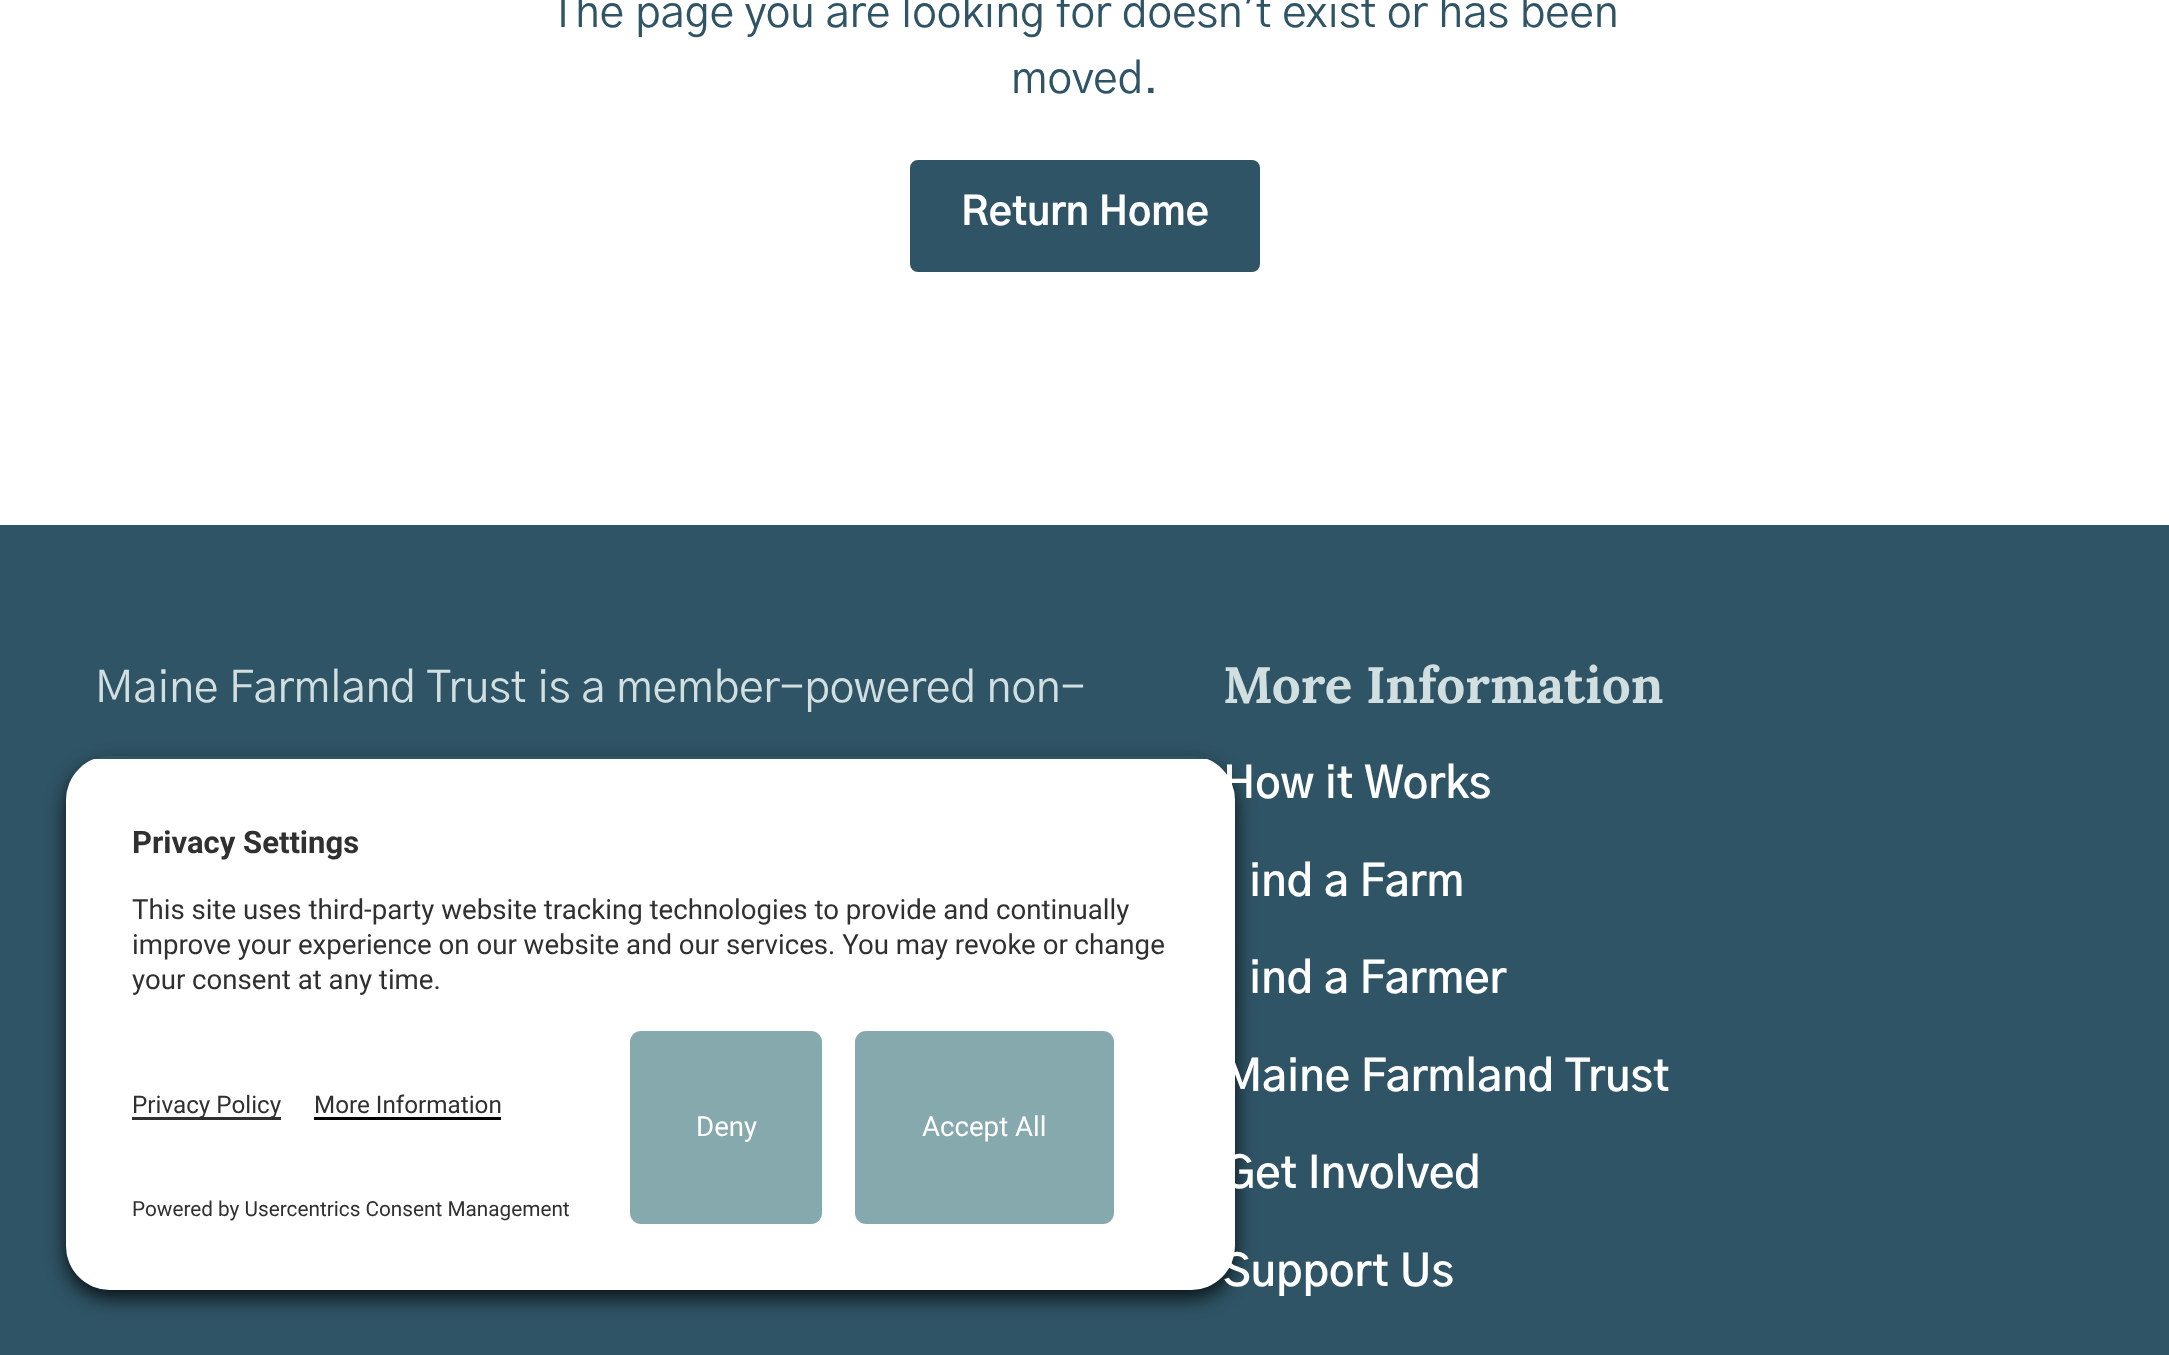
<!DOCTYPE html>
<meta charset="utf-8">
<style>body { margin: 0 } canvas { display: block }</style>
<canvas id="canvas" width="2169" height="1355"></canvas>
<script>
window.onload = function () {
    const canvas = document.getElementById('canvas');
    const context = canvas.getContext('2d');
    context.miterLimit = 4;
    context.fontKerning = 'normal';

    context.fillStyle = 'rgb(255, 255, 255)';
    context.fillRect(0, 0, 2169, 1355);
    context.fillStyle = 'rgb(47, 84, 101)';
    context.beginPath();
    context.roundRect(911.5, 161.5, 347, 109, 6.5);
    context.fill();
    context.strokeStyle = 'rgb(47, 84, 101)';
    context.lineWidth = 3;
    context.stroke();
    context.fillRect(0, 525, 2169, 830);
    context.save();
    context.beginPath();
    context.moveTo(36, 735);
    context.lineTo(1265, 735);
    context.lineTo(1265, 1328);
    context.lineTo(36, 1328);
    context.closePath();
    context.moveTo(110, 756);
    context.lineTo(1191, 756);
    context.bezierCurveTo(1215.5, 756, 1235, 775.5, 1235, 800);
    context.lineTo(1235, 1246);
    context.bezierCurveTo(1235, 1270.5, 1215.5, 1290, 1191, 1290);
    context.lineTo(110, 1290);
    context.bezierCurveTo(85.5, 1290, 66, 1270.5, 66, 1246);
    context.lineTo(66, 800);
    context.bezierCurveTo(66, 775.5, 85.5, 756, 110, 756);
    context.closePath();
    context.clip('evenodd');
    context.fillStyle = 'rgba(0, 0, 0, 0.8)';
    context.filter = 'blur(9.5px)';
    context.beginPath();
    context.roundRect(66, 765, 1169, 533, 44);
    context.fill();
    context.filter = 'none';
    context.restore();
    context.save();
    context.beginPath();
    context.roundRect(66, 756, 1169, 253, [44, 44, 0, 0]);
    context.clip();
    context.fillStyle = 'rgb(255, 255, 255)';
    context.fillRect(66, 759, 1169, 250);
    context.restore();
    context.fillStyle = 'rgb(255, 255, 255)';
    context.beginPath();
    context.roundRect(66, 1009, 1169, 281, [0, 0, 44, 44]);
    context.fill();
    context.fillStyle = 'rgb(48, 48, 48)';
    context.fillRect(132, 1117, 149, 3);
    context.fillStyle = 'rgb(0, 0, 0)';
    context.fillRect(314, 1117, 187, 3);
    context.fillStyle = 'rgb(134, 169, 173)';
    context.beginPath();
    context.roundRect(630, 1031, 192, 193, 11);
    context.fill();
    context.beginPath();
    context.roundRect(855, 1031, 259, 193, 11);
    context.fill();
    context.font = '44px "Gothic A1"';
    context.fillStyle = 'rgb(47, 84, 101)';
    context.fillText('The page you are looking for doesn\'t exist or has been', 551, 27);
    context.fillText('moved.', 1011, 93);
    context.font = 'bold 39.5px "Gothic A1"';
    context.fillStyle = 'rgb(255, 255, 255)';
    context.fillText('Return Home', 961, 225);
    context.font = '44px "Gothic A1"';
    context.fillStyle = 'rgb(210, 223, 225)';
    context.fillText('Maine Farmland Trust is a member-powered non-', 95, 702);
    context.font = 'bold 51.25px Lora';
    context.fillText('More Information', 1223, 703);
    context.font = '600 44px "Gothic A1"';
    context.fillStyle = 'rgb(255, 255, 255)';
    context.fillText('How it Works', 1223, 798);
    context.fillText('ind a Farm', 1249, 896);
    context.fillText('ind a Farmer', 1249, 993);
    context.fillText('Maine Farmland Trust', 1223, 1091);
    context.fillText('Get Involved', 1223, 1188);
    context.fillText('Support Us', 1223, 1286);
    context.font = 'bold 31px Roboto';
    context.fillStyle = 'rgb(48, 48, 48)';
    context.fillText('Privacy Settings', 132, 853);
    context.font = '27.65px Roboto';
    context.fillText('This site uses third-party website tracking technologies to provide and continually', 132, 919);
    context.fillText('improve your experience on our website and our services. You may revoke or change', 132, 954);
    context.fillText('your consent at any time.', 132, 989);
    context.font = '24.25px Roboto';
    context.fillText('Privacy Policy', 132, 1113);
    context.fillText('More Information', 314, 1113);
    context.font = '20.75px Roboto';
    context.fillText('Powered by Usercentrics Consent Management', 132, 1216);
    context.font = '27.65px Roboto';
    context.fillStyle = 'rgb(255, 255, 255)';
    context.fillText('Deny', 696, 1136);
    context.fillText('Accept All', 922, 1136);
};
</script>
